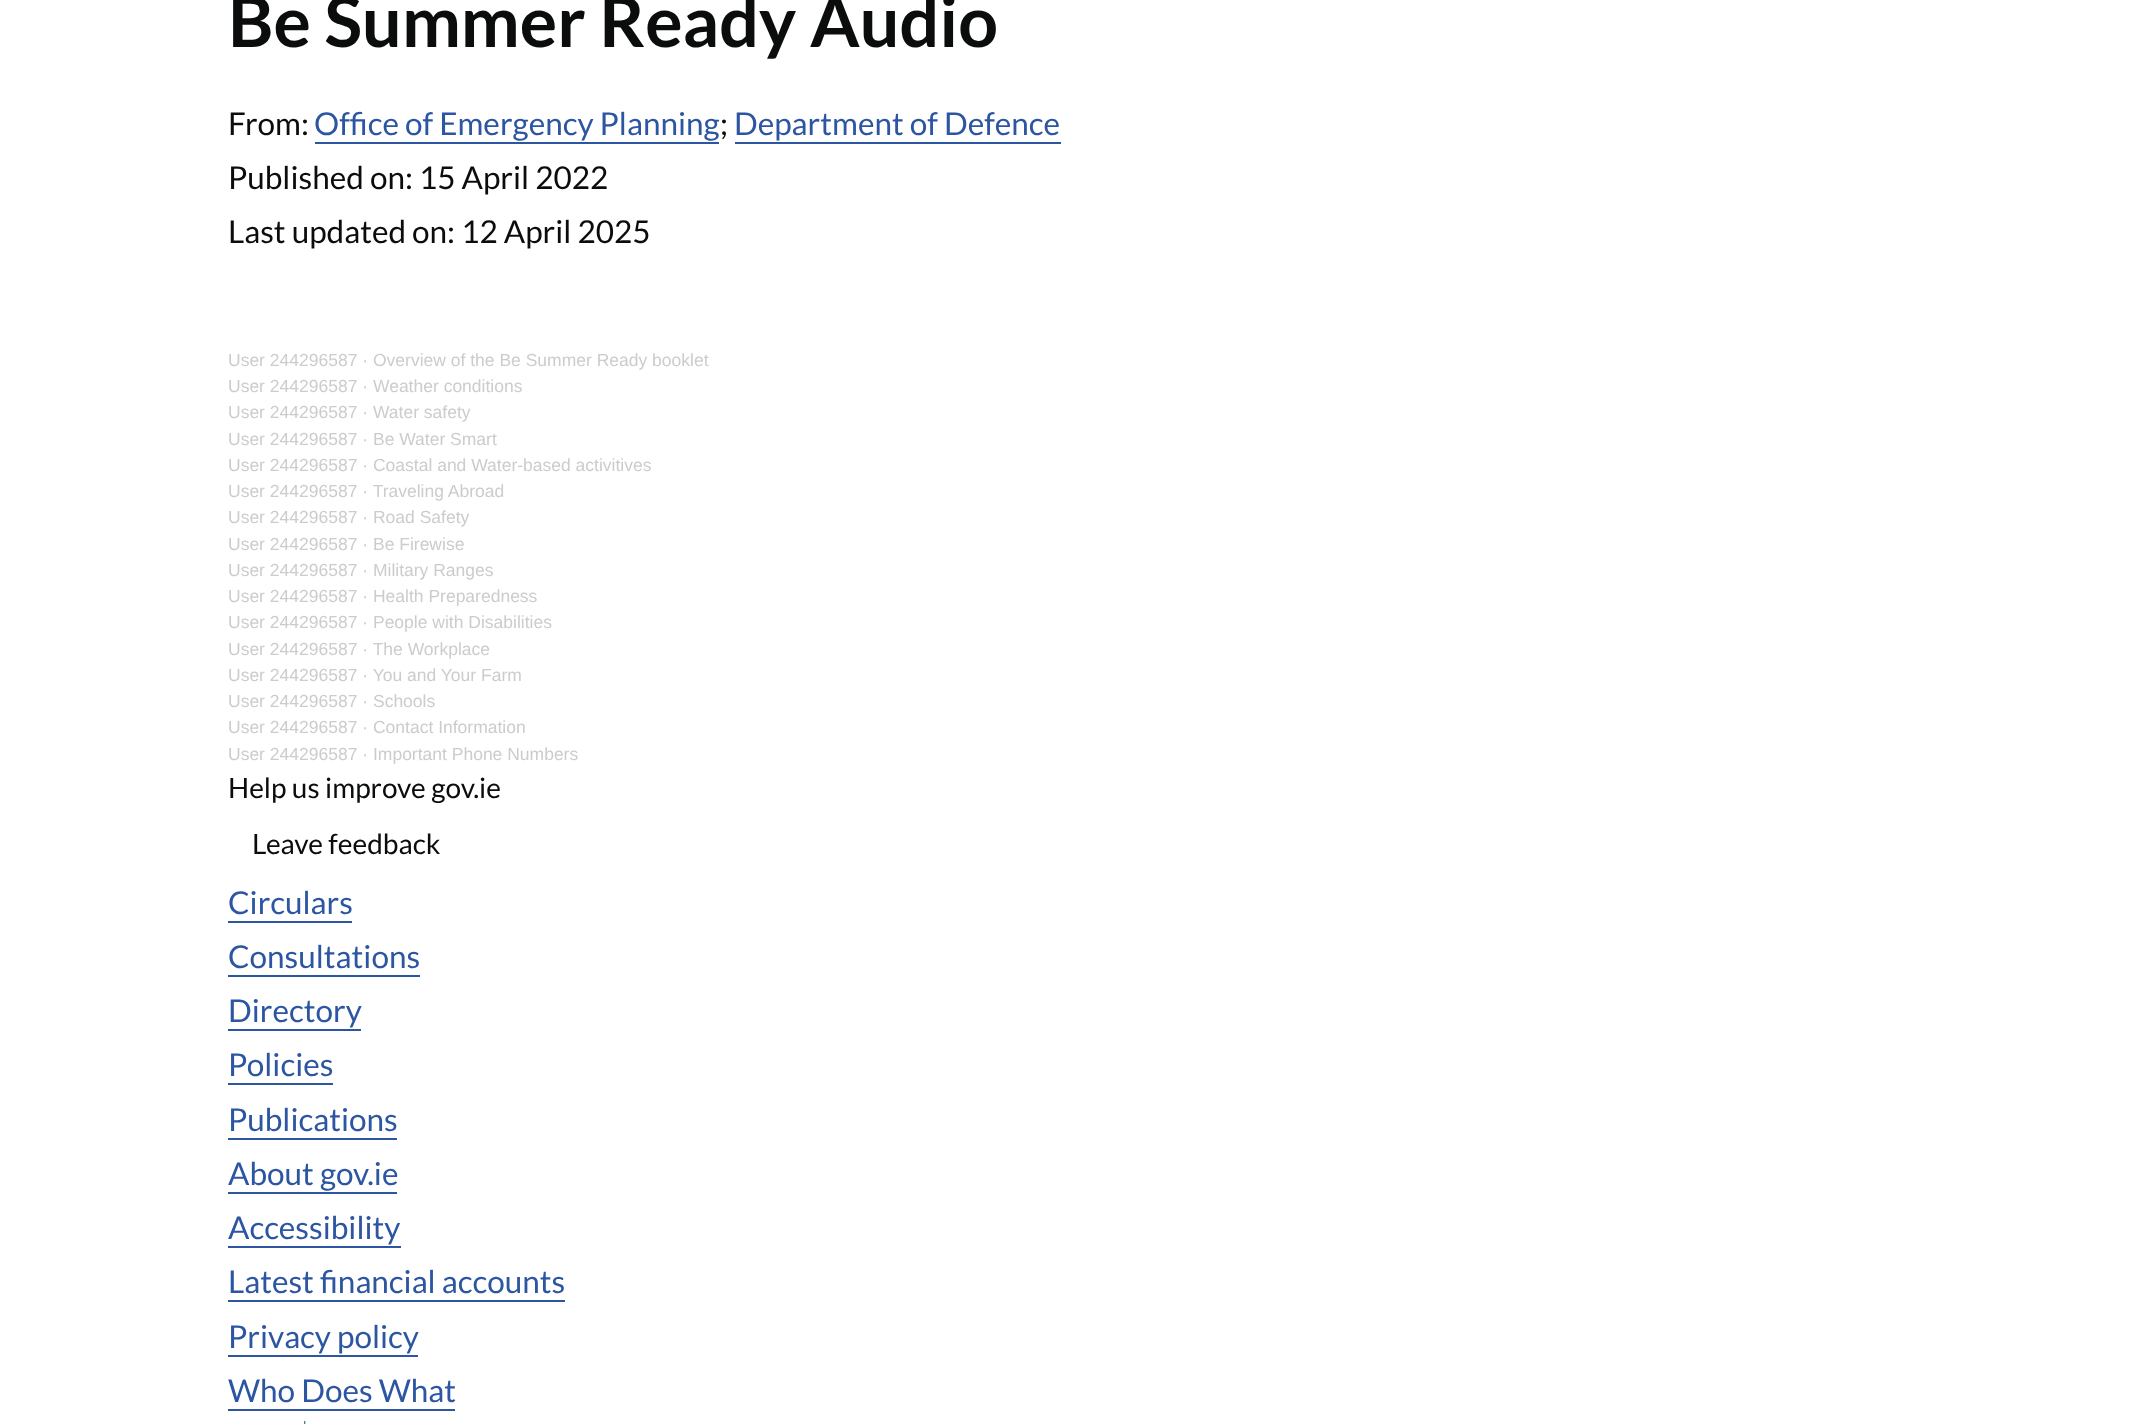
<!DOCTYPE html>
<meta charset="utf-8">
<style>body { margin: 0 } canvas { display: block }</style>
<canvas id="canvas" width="2135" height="1424"></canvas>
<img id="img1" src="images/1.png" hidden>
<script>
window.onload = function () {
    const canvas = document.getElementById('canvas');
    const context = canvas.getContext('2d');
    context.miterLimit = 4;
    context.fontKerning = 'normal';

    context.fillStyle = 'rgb(255, 255, 255)';
    context.fillRect(0, 0, 2135, 1424);
    context.fillStyle = 'rgb(44, 85, 162)';
    context.fillRect(315, 142, 404, 2);
    context.fillRect(735, 142, 326, 2);
    context.fillRect(228, 921, 124, 2);
    context.fillRect(228, 975, 192, 2);
    context.fillRect(228, 1029, 133, 2);
    context.fillRect(228, 1083, 105, 2);
    context.fillRect(228, 1138, 169, 2);
    context.fillRect(228, 1192, 169, 2);
    context.fillRect(228, 1246, 173, 2);
    context.fillRect(228, 1300, 337, 2);
    context.fillRect(228, 1355, 190, 2);
    context.fillRect(228, 1409, 227, 2);
    context.drawImage(document.getElementById('img1'), 304, 1421, 2, 3);
    context.font = 'bold 70px Lato';
    context.fillStyle = 'rgb(11, 12, 12)';
    context.fillText('Be Summer Ready Audio', 228, 47);
    context.font = '31.5px Lato';
    context.fillText('From:', 228, 135);
    context.fillStyle = 'rgb(44, 85, 162)';
    context.fillText('Office of Emergency Planning', 314, 135);
    context.fillStyle = 'rgb(11, 12, 12)';
    context.fillText(';', 720, 135);
    context.fillStyle = 'rgb(44, 85, 162)';
    context.fillText('Department of Defence', 734, 135);
    context.fillStyle = 'rgb(11, 12, 12)';
    context.fillText('Published on: 15 April 2022', 228, 189);
    context.fillText('Last updated on: 12 April 2025', 228, 243);
    context.font = '17.5px Liberation Sans';
    context.fillStyle = 'rgb(204, 204, 204)';
    context.fillText('User 244296587 · Overview of the Be Summer Ready booklet', 228, 366);
    context.fillText('User 244296587 · Weather conditions', 228, 392);
    context.fillText('User 244296587 · Water safety', 228, 418);
    context.fillText('User 244296587 · Be Water Smart', 228, 445);
    context.fillText('User 244296587 · Coastal and Water-based activitives', 228, 471);
    context.fillText('User 244296587 · Traveling Abroad', 228, 497);
    context.fillText('User 244296587 · Road Safety', 228, 523);
    context.fillText('User 244296587 · Be Firewise', 228, 550);
    context.fillText('User 244296587 · Military Ranges', 228, 576);
    context.fillText('User 244296587 · Health Preparedness', 228, 602);
    context.fillText('User 244296587 · People with Disabilities', 228, 628);
    context.fillText('User 244296587 · The Workplace', 228, 655);
    context.fillText('User 244296587 · You and Your Farm', 228, 681);
    context.fillText('User 244296587 · Schools', 228, 707);
    context.fillText('User 244296587 · Contact Information', 228, 733);
    context.fillText('User 244296587 · Important Phone Numbers', 228, 760);
    context.font = '28px Lato';
    context.fillStyle = 'rgb(11, 12, 12)';
    context.fillText('Help us improve gov.ie', 228, 798);
    context.fillText('Leave feedback', 252, 854);
    context.font = '31.5px Lato';
    context.fillStyle = 'rgb(44, 85, 162)';
    context.fillText('Circulars', 228, 914);
    context.fillText('Consultations', 228, 968);
    context.fillText('Directory', 228, 1022);
    context.fillText('Policies', 228, 1076);
    context.fillText('Publications', 228, 1131);
    context.fillText('About gov.ie', 228, 1185);
    context.fillText('Accessibility', 228, 1239);
    context.fillText('Latest financial accounts', 228, 1293);
    context.fillText('Privacy policy', 228, 1348);
    context.fillText('Who Does What', 228, 1402);
};
</script>
